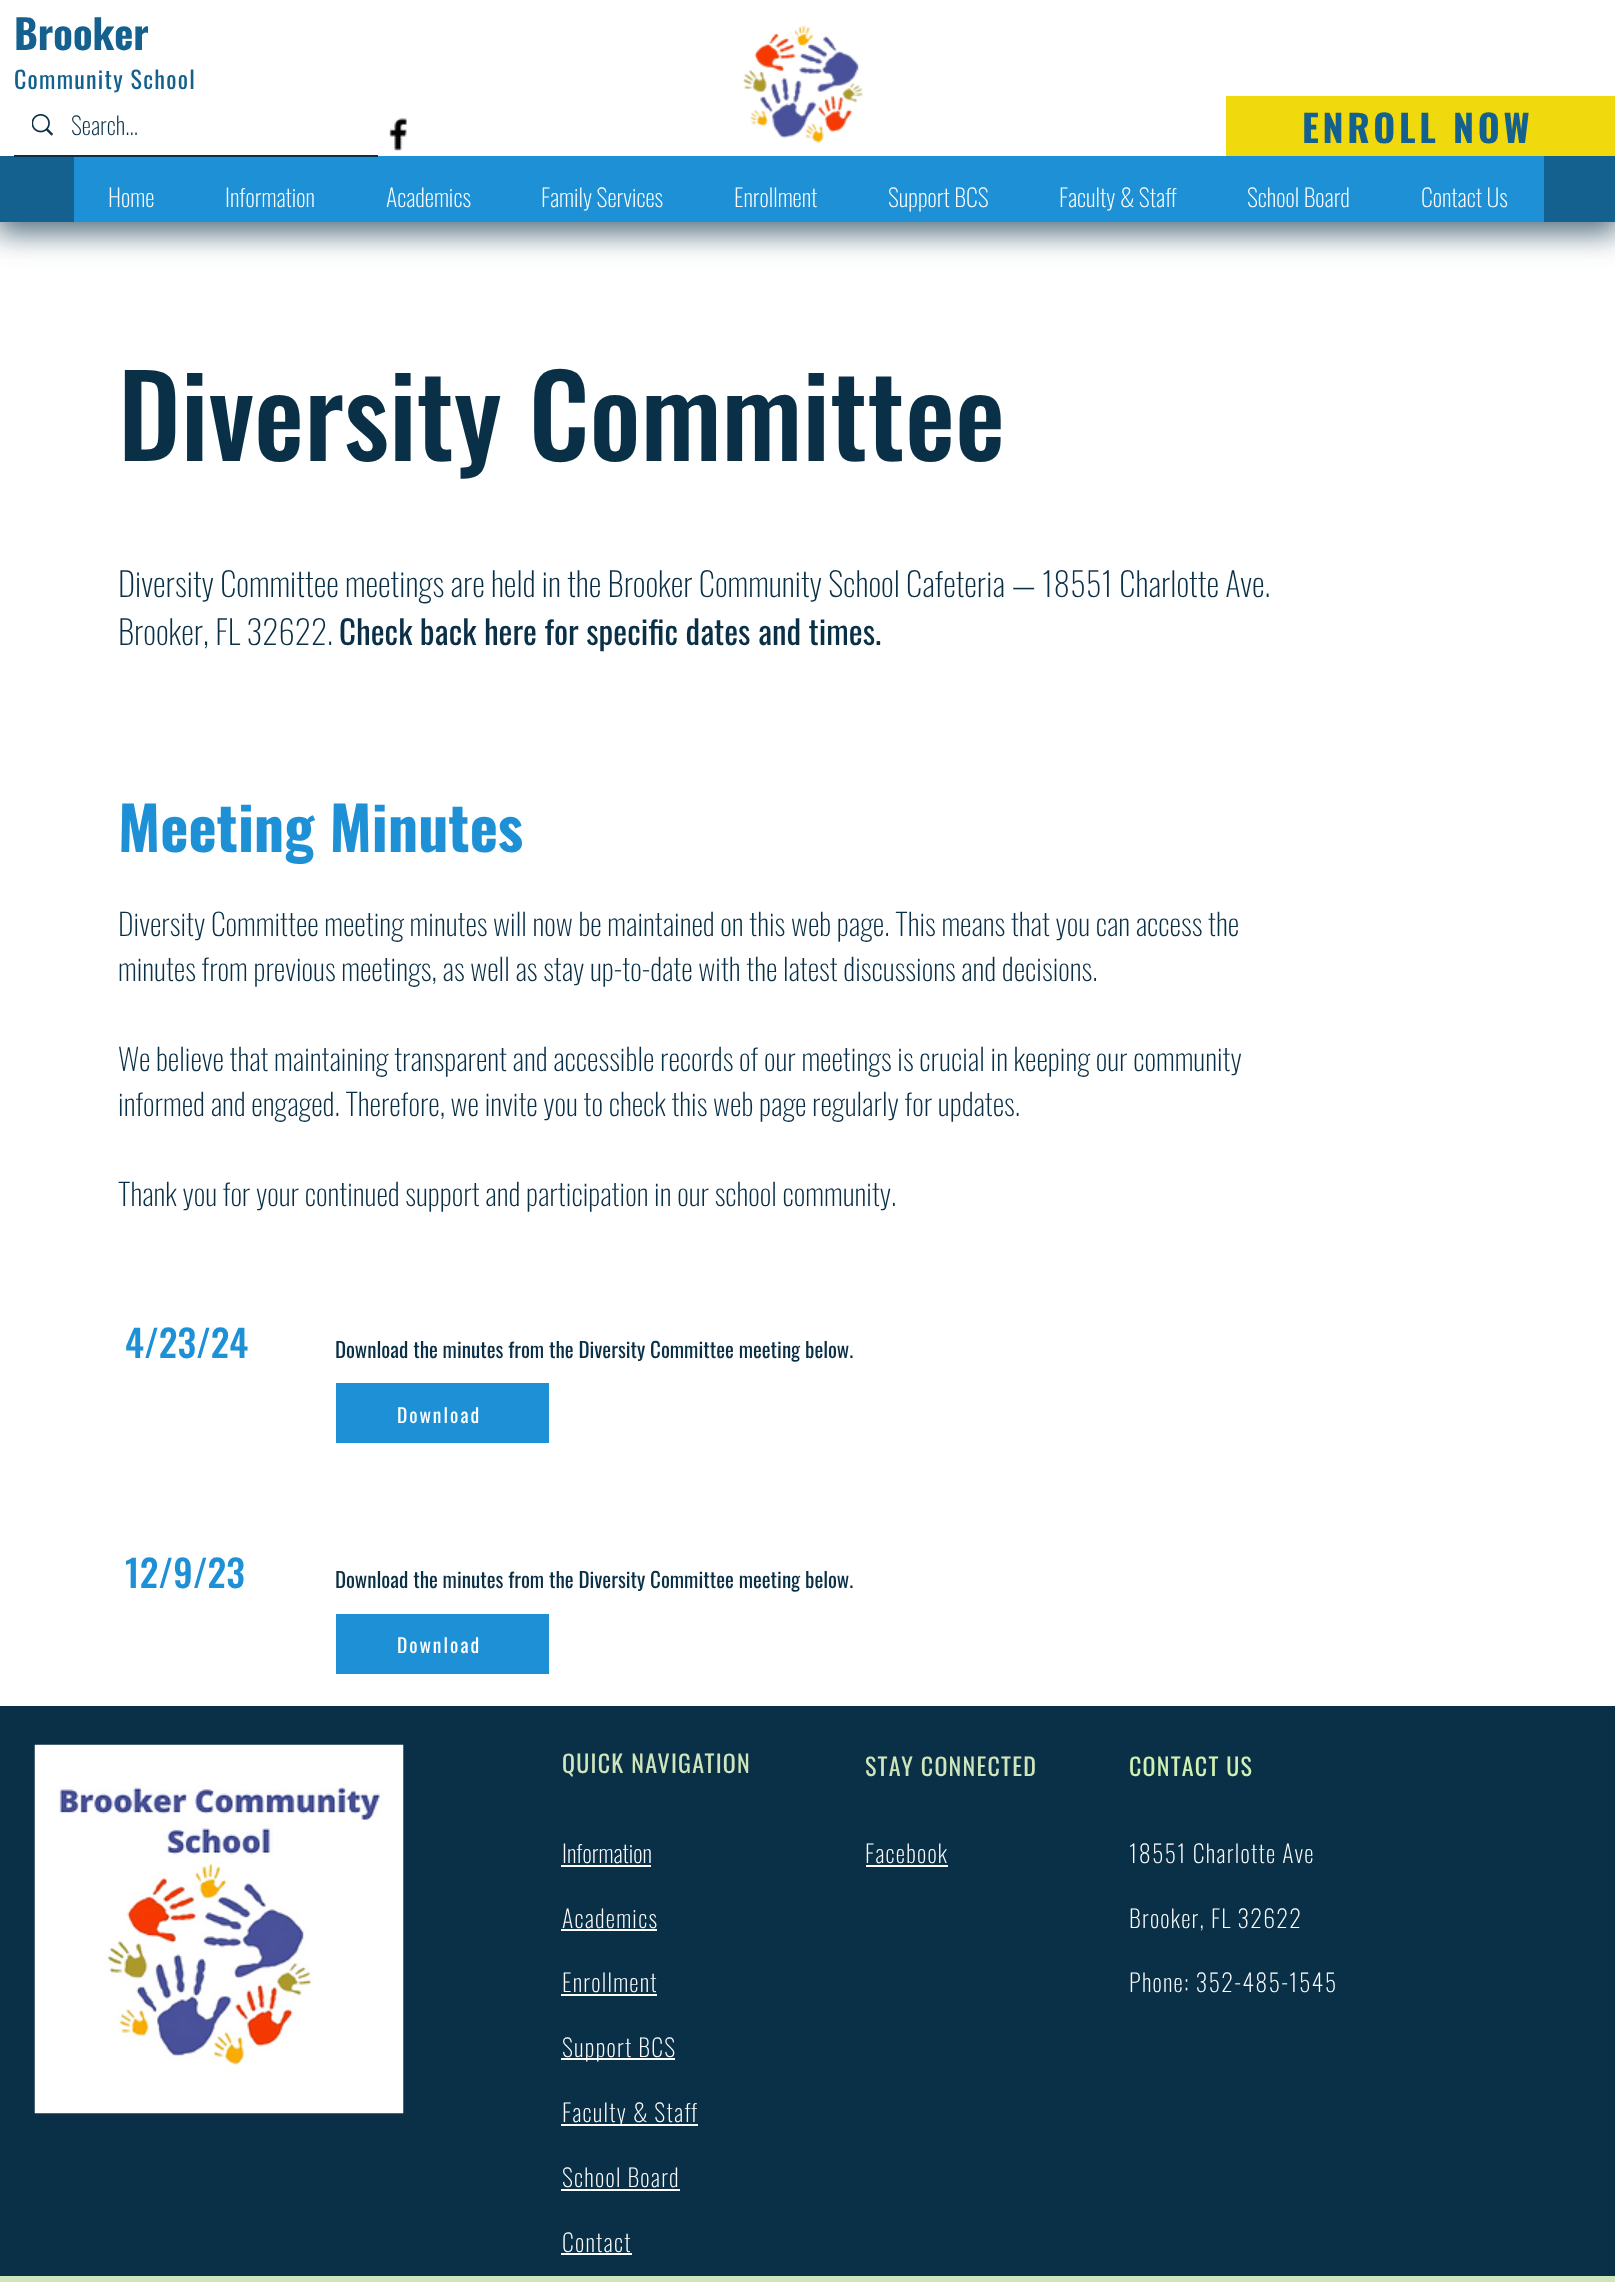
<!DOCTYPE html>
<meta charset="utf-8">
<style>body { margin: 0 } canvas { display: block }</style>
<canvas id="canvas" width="1615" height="2282"></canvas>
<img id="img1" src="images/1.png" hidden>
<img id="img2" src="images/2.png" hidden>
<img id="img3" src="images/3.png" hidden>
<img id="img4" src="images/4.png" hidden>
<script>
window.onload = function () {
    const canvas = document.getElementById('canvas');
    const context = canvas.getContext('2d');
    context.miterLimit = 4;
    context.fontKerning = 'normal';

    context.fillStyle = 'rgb(207, 229, 187)';
    context.fillRect(0, 0, 1615, 2282);
    context.fillStyle = 'rgb(255, 255, 255)';
    context.fillRect(0, 222, 1615, 1484);
    context.fillStyle = 'rgba(10, 48, 71, 0.7)';
    context.filter = 'blur(15px)';
    context.beginPath();
    context.rect(-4, 2, 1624, 231);
    context.fill();
    context.filter = 'none';
    context.fillStyle = 'rgb(20, 97, 143)';
    context.fillRect(0, 156, 1615, 66);
    context.fillStyle = 'rgb(255, 255, 255)';
    context.fillRect(0, 0, 1615, 156);
    context.fillStyle = 'rgb(30, 145, 214)';
    context.fillRect(74, 156, 1470, 66);
    context.fillStyle = 'rgb(10, 48, 71)';
    context.fillRect(14, 155, 364, 2);
    context.drawImage(document.getElementById('img1'), 32, 114, 21, 22);
    context.drawImage(document.getElementById('img2'), 389, 118, 18, 33);
    context.drawImage(document.getElementById('img3'), 742, 25, 121, 118);
    context.fillStyle = 'rgb(240, 217, 12)';
    context.fillRect(1226, 96, 389, 60);
    context.fillStyle = 'rgb(30, 145, 214)';
    context.fillRect(336, 1383, 213, 60);
    context.fillRect(336, 1614, 213, 60);
    context.fillStyle = 'rgb(10, 48, 71)';
    context.fillRect(0, 1706, 1615, 570);
    context.drawImage(document.getElementById('img4'), 34, 1744, 370, 370);
    context.fillStyle = 'rgb(255, 255, 255)';
    context.fillRect(561, 1865, 90, 2);
    context.fillRect(561, 1929, 96, 2);
    context.fillRect(561, 1994, 96, 2);
    context.fillRect(561, 2058, 114, 2);
    context.fillRect(561, 2124, 137, 2);
    context.fillRect(561, 2189, 119, 2);
    context.fillRect(561, 2253, 71, 2);
    context.fillRect(866, 1865, 82, 2);
    context.font = 'bold 40.5px Oswald';
    context.fillStyle = 'rgb(20, 97, 143)';
    context.fillText('Brooker', 14, 50);
    context.letterSpacing = '1.25px';
    context.font = '24px Oswald';
    context.fillText('Community School', 14, 89);
    context.letterSpacing = '0px';
    context.font = '200 24px Oswald';
    context.fillStyle = 'rgb(10, 48, 71)';
    context.fillText('Search...', 71, 135);
    context.letterSpacing = '3.75px';
    context.font = 'bold 37.5px Oswald';
    context.fillStyle = 'rgb(20, 97, 143)';
    context.fillText('ENROLL NOW', 1302, 143);
    context.letterSpacing = '0px';
    context.font = '200 24px Oswald';
    context.fillStyle = 'rgb(255, 255, 255)';
    context.fillText('Home', 108, 207);
    context.fillText('Information', 225, 207);
    context.fillText('Academics', 386, 207);
    context.fillText('Family Services', 541, 207);
    context.fillText('Enrollment', 734, 207);
    context.fillText('Support BCS', 888, 207);
    context.fillText('Faculty & Staff', 1059, 207);
    context.fillText('School Board', 1247, 207);
    context.fillText('Contact Us', 1421, 207);
    context.font = '500 112.5px Oswald';
    context.fillStyle = 'rgb(10, 48, 71)';
    context.fillText('Diversity Committee', 118, 461);
    context.font = '200 33px Oswald';
    context.fillText('Diversity Committee meetings are held in the Brooker Community School Cafeteria — 18551 Charlotte Ave.', 118, 597);
    context.fillText('Brooker, FL 32622.', 118, 645);
    context.font = '33px Oswald';
    context.fillText('Check back here for specific dates and times.', 339, 645);
    context.font = 'bold 60px Oswald';
    context.fillStyle = 'rgb(30, 145, 214)';
    context.fillText('Meeting Minutes', 118, 852);
    context.font = '200 30px Oswald';
    context.fillStyle = 'rgb(10, 48, 71)';
    context.fillText('Diversity Committee meeting minutes will now be maintained on this web page. This means that you can access the', 118, 936);
    context.fillText('minutes from previous meetings, as well as stay up-to-date with the latest discussions and decisions.', 118, 981);
    context.fillText('We believe that maintaining transparent and accessible records of our meetings is crucial in keeping our community', 118, 1071);
    context.fillText('informed and engaged. Therefore, we invite you to check this web page regularly for updates.', 118, 1116);
    context.fillText('Thank you for your continued support and participation in our school community.', 118, 1206);
    context.font = '500 37.5px Oswald';
    context.fillStyle = 'rgb(30, 145, 214)';
    context.fillText('4/23/24', 125, 1358);
    context.font = '21px Oswald';
    context.fillStyle = 'rgb(10, 48, 71)';
    context.fillText('Download the minutes from the Diversity Committee meeting below.', 335, 1358);
    context.letterSpacing = '2px';
    context.font = '19.5px Oswald';
    context.fillStyle = 'rgb(255, 255, 255)';
    context.fillText('Download', 397, 1423);
    context.letterSpacing = '0px';
    context.font = '500 37.5px Oswald';
    context.fillStyle = 'rgb(30, 145, 214)';
    context.fillText('12/9/23', 125, 1588);
    context.font = '21px Oswald';
    context.fillStyle = 'rgb(10, 48, 71)';
    context.fillText('Download the minutes from the Diversity Committee meeting below.', 335, 1588);
    context.letterSpacing = '2px';
    context.font = '19.5px Oswald';
    context.fillStyle = 'rgb(255, 255, 255)';
    context.fillText('Download', 397, 1653);
    context.letterSpacing = '1.25px';
    context.font = '24px Oswald';
    context.fillStyle = 'rgb(207, 229, 187)';
    context.fillText('QUICK NAVIGATION', 562, 1773);
    context.letterSpacing = '0px';
    context.font = '200 24px Oswald';
    context.fillStyle = 'rgb(255, 255, 255)';
    context.fillText('Information', 562, 1863);
    context.letterSpacing = '1.25px';
    context.fillText('Academics', 562, 1928);
    context.fillText('Enrollment', 562, 1992);
    context.fillText('Support BCS', 562, 2057);
    context.fillText('Faculty & Staff', 562, 2122);
    context.fillText('School Board', 562, 2187);
    context.fillText('Contact', 562, 2252);
    context.font = '24px Oswald';
    context.fillStyle = 'rgb(207, 229, 187)';
    context.fillText('STAY CONNECTED', 865, 1776);
    context.font = '200 24px Oswald';
    context.fillStyle = 'rgb(255, 255, 255)';
    context.fillText('Facebook', 865, 1863);
    context.font = '24px Oswald';
    context.fillStyle = 'rgb(208, 241, 179)';
    context.fillText('CONTACT US', 1129, 1776);
    context.font = '200 24px Oswald';
    context.fillStyle = 'rgb(255, 255, 255)';
    context.fillText('18551 Charlotte Ave', 1129, 1863);
    context.fillText('Brooker, FL 32622', 1129, 1928);
    context.fillText('Phone: 352-485-1545', 1129, 1992);
};
</script>
